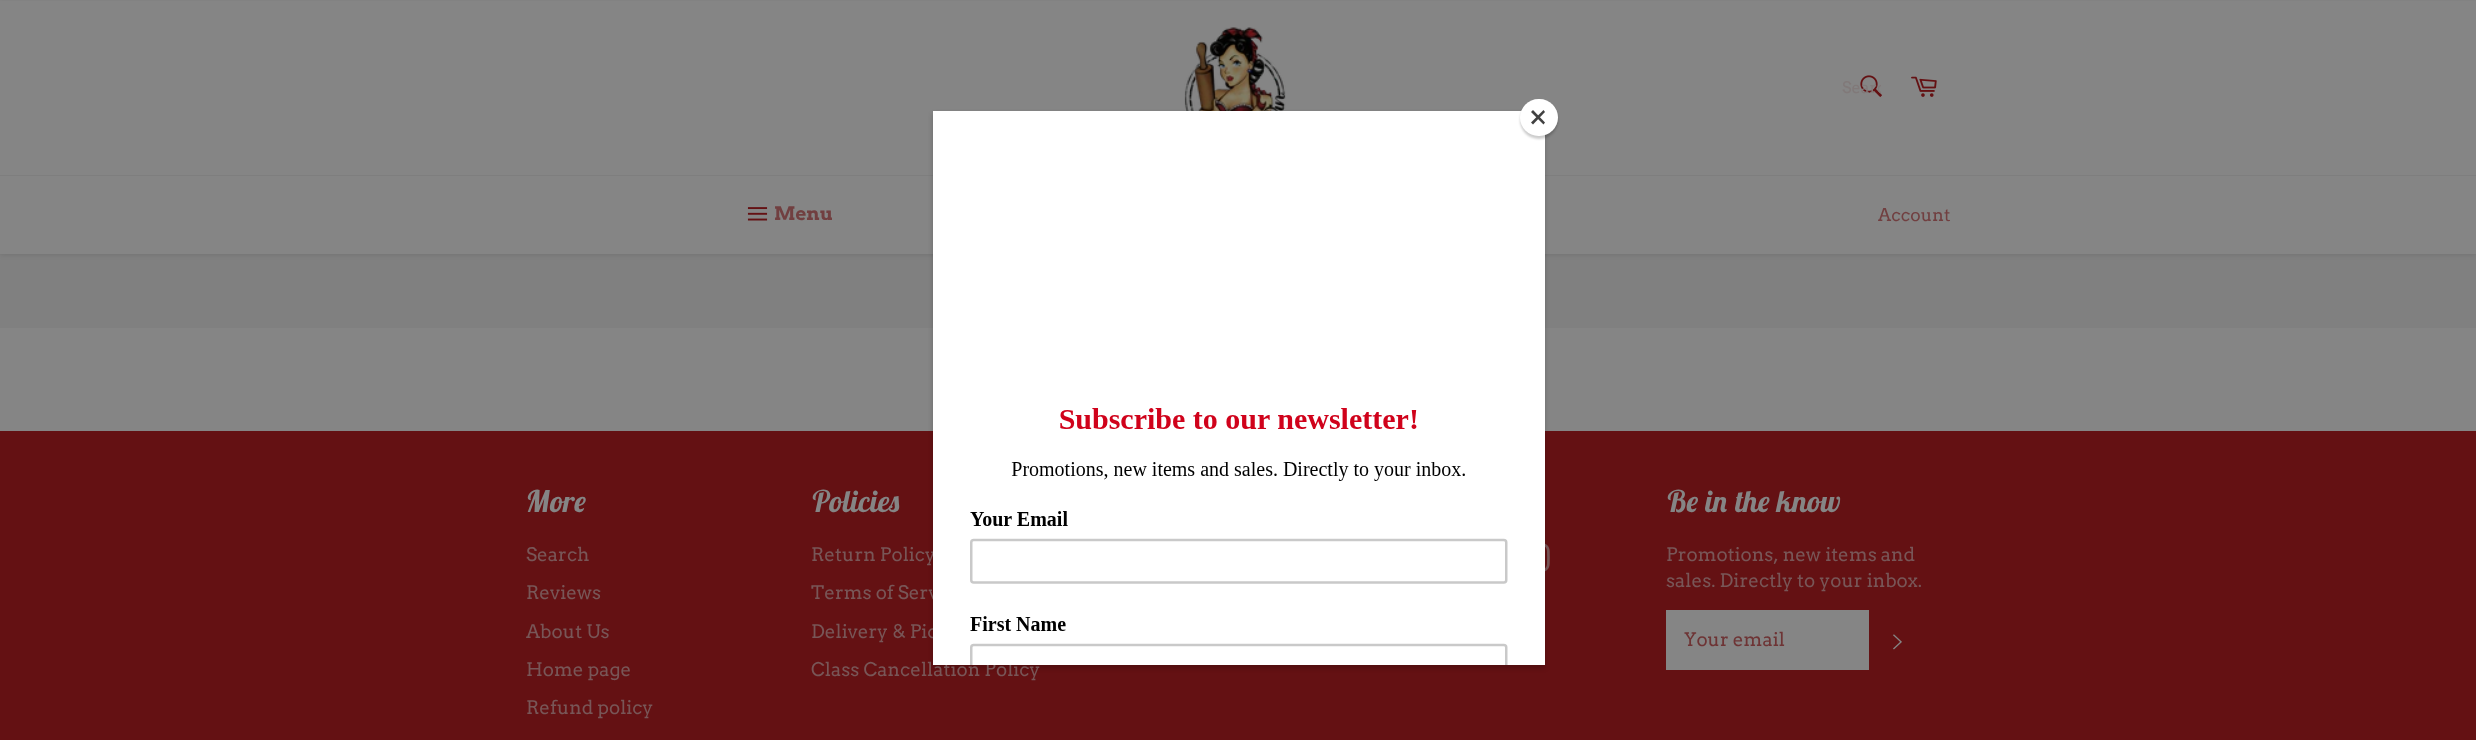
<!DOCTYPE html>
<meta charset="utf-8">
<style>body { margin: 0 } canvas { display: block }</style>
<canvas id="canvas" width="2476" height="740"></canvas>
<img id="img1" src="images/1.png" hidden>
<img id="img2" src="images/2.png" hidden>
<img id="img3" src="images/3.png" hidden>
<img id="img4" src="images/4.png" hidden>
<img id="img5" src="images/6.png" hidden>
<img id="img6" src="images/7.png" hidden>
<img id="img7" src="images/5.png" hidden>
<script>
window.onload = function () {
    const canvas = document.getElementById('canvas');
    const context = canvas.getContext('2d');
    context.miterLimit = 4;
    context.fontKerning = 'none';

    context.fillStyle = 'rgb(133, 133, 133)';
    context.fillRect(0, 0, 2476, 740);
    context.fillStyle = 'rgb(128, 128, 128)';
    context.fillRect(0, 254, 2476, 74);
    context.fillStyle = 'rgba(0, 0, 0, 0.1)';
    context.filter = 'blur(2.5px)';
    context.beginPath();
    context.rect(0, 3, 2476, 252);
    context.fill();
    context.filter = 'none';
    context.fillStyle = 'rgb(133, 133, 133)';
    context.fillRect(0, 1, 2476, 174);
    context.drawImage(document.getElementById('img1'), 1184, 27, 102, 84);
    context.drawImage(document.getElementById('img2'), 1860, 75, 22, 22);
    context.drawImage(document.getElementById('img3'), 1911, 76, 26, 21);
    context.fillRect(0, 176, 2476, 78);
    context.fillStyle = 'rgb(126, 126, 126)';
    context.fillRect(0, 175, 2476, 1);
    context.drawImage(document.getElementById('img4'), 747, 207, 21, 14);
    context.fillStyle = 'rgb(100, 17, 19)';
    context.fillRect(0, 431, 2476, 309);
    context.drawImage(document.getElementById('img5'), 1545, 543, 5, 29);
    context.fillStyle = 'rgba(0, 0, 0, 0.2)';
    context.filter = 'blur(2.5px)';
    context.beginPath();
    context.rect(933, 114, 612, 554);
    context.fill();
    context.filter = 'none';
    context.fillStyle = 'rgb(133, 133, 133)';
    context.fillRect(1666, 610, 203, 60);
    context.drawImage(document.getElementById('img6'), 1893, 634, 9, 16);
    context.save();
    context.beginPath();
    context.rect(1841, 79, 40, 19);
    context.clip();
    context.font = '16px Arvo';
    context.fillStyle = 'rgb(129, 121, 121)';
    context.fillText('Searc', 1842, 93);
    context.restore();
    context.font = 'bold 18.75px Arvo';
    context.fillStyle = 'rgb(113, 63, 64)';
    context.fillText('Menu', 774, 220);
    context.font = '17.5px Arvo';
    context.fillText('Account', 1878, 221);
    context.font = 'italic bold 30px Lobster Two';
    context.fillStyle = 'rgb(133, 133, 133)';
    context.fillText('More', 526, 512);
    context.font = '18.75px Arvo';
    context.fillStyle = 'rgb(120, 86, 87)';
    context.fillText('Search', 526, 561);
    context.fillText('Reviews', 526, 599);
    context.fillText('About Us', 526, 638);
    context.fillText('Home page', 526, 676);
    context.fillText('Refund policy', 526, 714);
    context.font = 'italic bold 30px Lobster Two';
    context.fillStyle = 'rgb(133, 133, 133)';
    context.fillText('Policies', 811, 512);
    context.font = '18.75px Arvo';
    context.fillStyle = 'rgb(120, 86, 87)';
    context.fillText('Return Policy', 811, 561);
    context.fillText('Terms of Serv', 811, 599);
    context.fillText('Delivery & Pic', 811, 638);
    context.fillText('Class Cancellation Policy', 811, 676);
    context.drawImage(document.getElementById('img7'), 933, 111, 612, 554);
    context.fillStyle = 'rgba(0, 0, 0, 0.2)';
    context.filter = 'blur(1px)';
    context.beginPath();
    context.roundRect(1520, 101, 38, 38, 19);
    context.fill();
    context.filter = 'none';
    context.fillStyle = 'rgb(255, 255, 255)';
    context.beginPath();
    context.roundRect(1520, 99, 38, 37, 18.5);
    context.fill();
    context.fillStyle = 'rgb(65, 65, 65)';
    context.beginPath();
    context.moveTo(1543.5, 110);
    context.lineTo(1545, 112);
    context.lineTo(1533, 124.5);
    context.lineTo(1531, 122.5);
    context.closePath();
    context.fill();
    context.beginPath();
    context.moveTo(1531, 112);
    context.lineTo(1533, 110);
    context.lineTo(1545, 122.5);
    context.lineTo(1543.5, 124.5);
    context.closePath();
    context.fill();
    context.font = 'italic bold 30px Lobster Two';
    context.fillStyle = 'rgb(133, 133, 133)';
    context.fillText('Be in the know', 1666, 512);
    context.font = '18.75px Arvo';
    context.fillStyle = 'rgb(120, 86, 87)';
    context.fillText('Promotions, new items and', 1666, 561);
    context.fillText('sales. Directly to your inbox.', 1666, 587);
    context.fillStyle = 'rgb(110, 52, 53)';
    context.fillText('Your email', 1684, 646);
};
</script>
